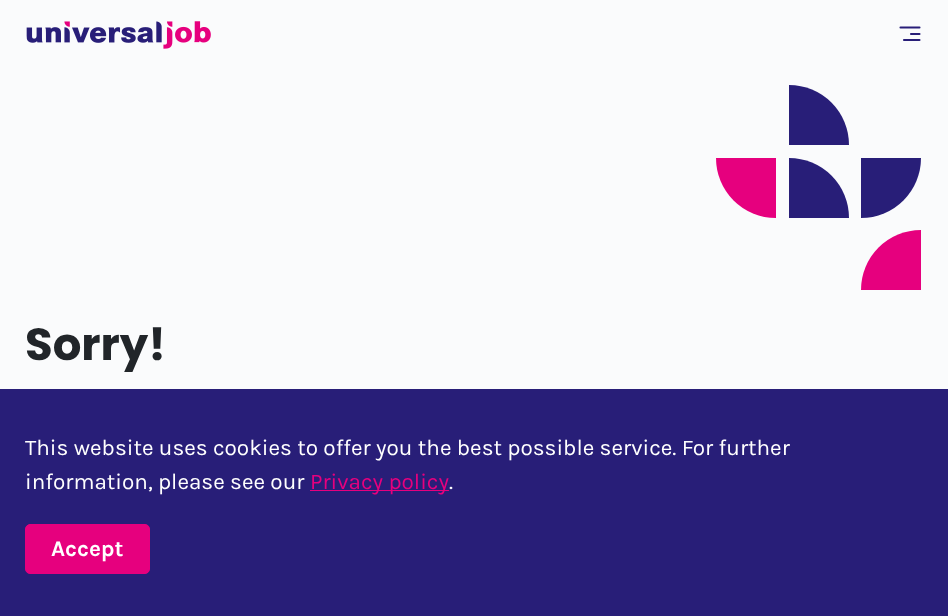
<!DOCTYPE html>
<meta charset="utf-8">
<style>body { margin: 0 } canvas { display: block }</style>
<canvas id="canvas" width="948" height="616"></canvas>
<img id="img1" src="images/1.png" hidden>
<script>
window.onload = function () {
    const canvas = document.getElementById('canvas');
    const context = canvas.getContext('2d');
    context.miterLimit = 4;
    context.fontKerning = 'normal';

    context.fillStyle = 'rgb(250, 251, 252)';
    context.fillRect(0, 0, 948, 616);
    context.drawImage(document.getElementById('img1'), 26, 21, 185, 28);
    context.beginPath();
    context.moveTo(911, 34);
    context.lineTo(919.5, 34);
    context.moveTo(900.5, 27.5);
    context.lineTo(919.5, 27.5);
    context.moveTo(904, 40);
    context.lineTo(919.5, 40);
    context.strokeStyle = 'rgb(40, 30, 120)';
    context.lineWidth = 2.1;
    context.lineCap = 'round';
    context.lineJoin = 'round';
    context.stroke();
    context.fillStyle = 'rgb(40, 30, 120)';
    context.beginPath();
    context.roundRect(789, 85, 60, 60, [0, 60, 0, 0]);
    context.fill();
    context.fillStyle = 'rgb(230, 0, 126)';
    context.beginPath();
    context.roundRect(716, 158, 60, 60, [0, 0, 0, 60]);
    context.fill();
    context.fillStyle = 'rgb(40, 30, 120)';
    context.beginPath();
    context.roundRect(789, 158, 60, 60, [0, 60, 0, 0]);
    context.fill();
    context.beginPath();
    context.roundRect(861, 158, 60, 60, [0, 0, 60, 0]);
    context.fill();
    context.fillStyle = 'rgb(230, 0, 126)';
    context.beginPath();
    context.roundRect(861, 230, 60, 60, [60, 0, 0, 0]);
    context.fill();
    context.fillStyle = 'rgb(40, 30, 120)';
    context.fillRect(0, 389, 948, 227);
    context.fillStyle = 'rgb(230, 0, 126)';
    context.fillRect(310, 490, 139, 1);
    context.beginPath();
    context.roundRect(25.5, 524.5, 124, 49, 4.5);
    context.fill();
    context.strokeStyle = 'rgb(230, 0, 126)';
    context.lineWidth = 1;
    context.lineJoin = 'miter';
    context.stroke();
    context.font = 'bold 45px Poppins';
    context.fillStyle = 'rgb(33, 37, 41)';
    context.fillText('Sorry!', 25, 360);
    context.font = '22.5px Karla';
    context.fillStyle = 'rgb(255, 255, 255)';
    context.fillText('This website uses cookies to offer you the best possible service. For further', 25, 455);
    context.fillText('information, please see our', 25, 489);
    context.fillStyle = 'rgb(230, 0, 126)';
    context.fillText('Privacy policy', 310, 489);
    context.fillStyle = 'rgb(255, 255, 255)';
    context.fillText('.', 449, 489);
    context.font = 'bold 22.5px Karla';
    context.fillText('Accept', 51, 556);
};
</script>
